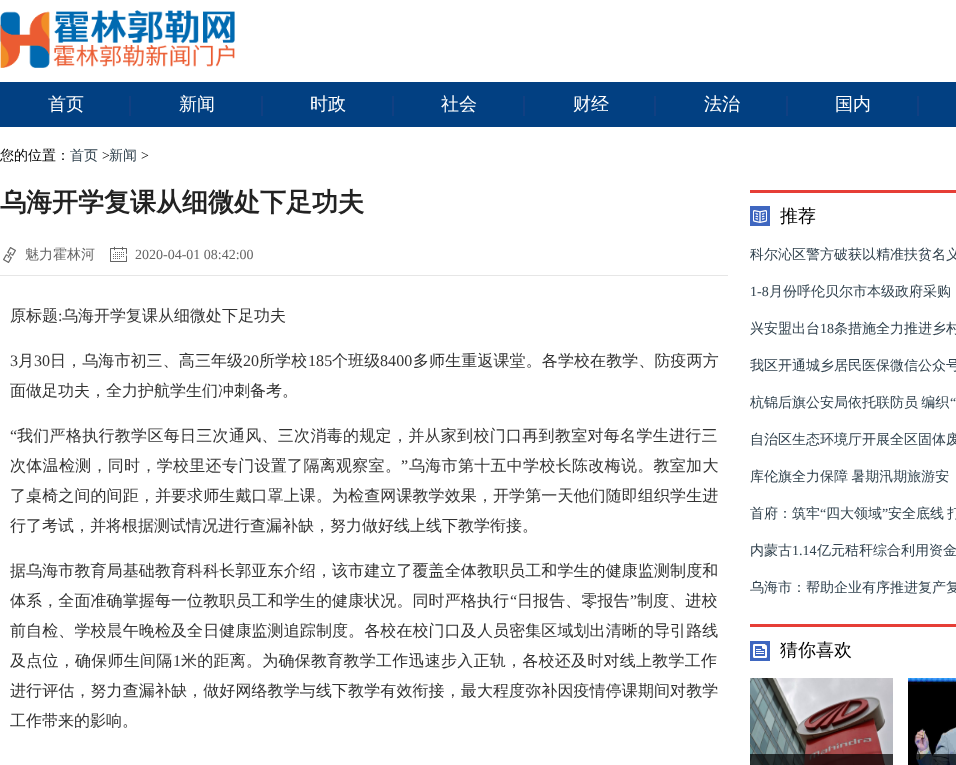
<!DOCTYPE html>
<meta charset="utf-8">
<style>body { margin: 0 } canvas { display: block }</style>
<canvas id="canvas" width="956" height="765"></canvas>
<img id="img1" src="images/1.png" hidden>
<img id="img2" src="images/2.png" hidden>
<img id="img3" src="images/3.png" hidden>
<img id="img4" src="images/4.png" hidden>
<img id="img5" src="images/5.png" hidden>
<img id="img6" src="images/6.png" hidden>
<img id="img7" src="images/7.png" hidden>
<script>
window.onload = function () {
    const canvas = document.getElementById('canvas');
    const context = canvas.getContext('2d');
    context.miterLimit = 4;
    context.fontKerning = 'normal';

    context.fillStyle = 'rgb(255, 255, 255)';
    context.fillRect(0, 0, 956, 765);
    context.drawImage(document.getElementById('img1'), 0, 10, 235, 58);
    context.fillStyle = 'rgb(2, 64, 130)';
    context.fillRect(0, 82, 956, 45);
    context.fillStyle = 'rgb(18, 64, 130)';
    context.fillRect(129, 96, 2, 20);
    context.fillRect(261, 96, 2, 20);
    context.fillRect(392, 96, 2, 20);
    context.fillRect(523, 96, 2, 20);
    context.fillRect(654, 96, 2, 20);
    context.fillRect(786, 96, 2, 20);
    context.fillRect(917, 96, 2, 20);
    context.fillStyle = 'rgb(230, 230, 230)';
    context.fillRect(0, 275, 728, 1);
    context.drawImage(document.getElementById('img2'), 3, 247, 13, 16);
    context.drawImage(document.getElementById('img3'), 110, 246, 17, 16);
    context.fillStyle = 'rgb(230, 62, 54)';
    context.fillRect(750, 190, 206, 3);
    context.drawImage(document.getElementById('img4'), 750, 206, 20, 20);
    context.fillRect(750, 624, 206, 3);
    context.drawImage(document.getElementById('img5'), 750, 641, 20, 20);
    context.drawImage(document.getElementById('img6'), 750, 678, 143, 87);
    context.fillStyle = 'rgba(0, 0, 0, 0.7)';
    context.fillRect(750, 754, 143, 11);
    context.drawImage(document.getElementById('img7'), 908, 678, 48, 87);
    context.fillRect(911, 754, 45, 11);
    context.font = '500 18px WenQuanYi Zen Hei';
    context.fillStyle = 'rgb(255, 255, 255)';
    context.fillText('首页', 48, 110);
    context.fillText('新闻', 179, 110);
    context.fillText('时政', 310, 110);
    context.fillText('社会', 441, 110);
    context.fillText('财经', 573, 110);
    context.fillText('法治', 704, 110);
    context.fillText('国内', 835, 110);
    context.font = '500 14px WenQuanYi Zen Hei';
    context.fillStyle = 'rgb(0, 0, 0)';
    context.fillText('您的位置：', 0, 160);
    context.fillStyle = 'rgb(49, 66, 78)';
    context.fillText('首页', 70, 160);
    context.font = '14px Liberation Serif';
    context.fillStyle = 'rgb(0, 0, 0)';
    context.fillText('>', 102, 160);
    context.font = '500 14px WenQuanYi Zen Hei';
    context.fillStyle = 'rgb(49, 66, 78)';
    context.fillText('新闻', 109, 160);
    context.font = '14px Liberation Serif';
    context.fillStyle = 'rgb(0, 0, 0)';
    context.fillText('>', 141, 160);
    context.font = 'bold 26px WenQuanYi Zen Hei';
    context.fillStyle = 'rgb(34, 34, 34)';
    context.fillText('乌海开学复课从细微处下足功夫', 0, 211);
    context.font = '500 14px WenQuanYi Zen Hei';
    context.fillStyle = 'rgb(100, 100, 100)';
    context.fillText('魅力霍林河', 25, 259);
    context.font = '14px Liberation Serif';
    context.fillText('2020-04-01 08:42:00', 135, 259);
    context.font = '500 16px WenQuanYi Zen Hei';
    context.fillStyle = 'rgb(51, 51, 51)';
    context.fillText('原标题', 10, 321);
    context.font = '16px Liberation Serif';
    context.fillText(':', 58, 321);
    context.font = '500 16px WenQuanYi Zen Hei';
    context.fillText('乌海开学复课从细微处下足功夫', 62, 321);
    context.letterSpacing = '0.1px';
    context.font = '16px Liberation Serif';
    context.fillText('3', 10, 366);
    context.font = '500 16px WenQuanYi Zen Hei';
    context.fillText('月', 18, 366);
    context.font = '16px Liberation Serif';
    context.fillText('30', 34, 366);
    context.font = '500 16px WenQuanYi Zen Hei';
    context.fillText('日，乌海市初三、高三年级', 50, 366);
    context.font = '16px Liberation Serif';
    context.fillText('20', 243, 366);
    context.font = '500 16px WenQuanYi Zen Hei';
    context.fillText('所学校', 259, 366);
    context.font = '16px Liberation Serif';
    context.fillText('185', 308, 366);
    context.font = '500 16px WenQuanYi Zen Hei';
    context.fillText('个班级', 332, 366);
    context.font = '16px Liberation Serif';
    context.fillText('8400', 380, 366);
    context.font = '500 16px WenQuanYi Zen Hei';
    context.fillText('多师生重返课堂。各学校在教学、防疫两方', 413, 366);
    context.letterSpacing = '0px';
    context.fillText('面做足功夫，全力护航学生们冲刺备考。', 10, 396);
    context.letterSpacing = '0.3px';
    context.font = '16px Liberation Serif';
    context.fillText('“', 10, 441);
    context.font = '500 16px WenQuanYi Zen Hei';
    context.fillText('我们严格执行教学区每日三次通风、三次消毒的规定，并从家到校门口再到教室对每名学生进行三', 17, 441);
    context.fillText('次体温检测，同时，学校里还专门设置了隔离观察室。', 10, 471);
    context.font = '16px Liberation Serif';
    context.fillText('”', 401, 471);
    context.font = '500 16px WenQuanYi Zen Hei';
    context.fillText('乌海市第十五中学校长陈改梅说。教室加大', 409, 471);
    context.letterSpacing = '0.1px';
    context.fillText('了桌椅之间的间距，并要求师生戴口罩上课。为检查网课教学效果，开学第一天他们随即组织学生进', 10, 501);
    context.letterSpacing = '0px';
    context.fillText('行了考试，并将根据测试情况进行查漏补缺，努力做好线上线下教学衔接。', 10, 531);
    context.letterSpacing = '0.1px';
    context.fillText('据乌海市教育局基础教育科科长郭亚东介绍，该市建立了覆盖全体教职员工和学生的健康监测制度和', 10, 576);
    context.fillText('体系，全面准确掌握每一位教职员工和学生的健康状况。同时严格执行', 10, 606);
    context.font = '16px Liberation Serif';
    context.fillText('“', 510, 606);
    context.font = '500 16px WenQuanYi Zen Hei';
    context.fillText('日报告、零报告', 517, 606);
    context.font = '16px Liberation Serif';
    context.fillText('”', 630, 606);
    context.font = '500 16px WenQuanYi Zen Hei';
    context.fillText('制度、进校', 637, 606);
    context.fillText('前自检、学校晨午晚检及全日健康监测追踪制度。各校在校门口及人员密集区域划出清晰的导引路线', 10, 636);
    context.letterSpacing = '0.25px';
    context.fillText('及点位，确保师生间隔', 10, 666);
    context.font = '16px Liberation Serif';
    context.fillText('1', 173, 666);
    context.font = '500 16px WenQuanYi Zen Hei';
    context.fillText('米的距离。为确保教育教学工作迅速步入正轨，各校还及时对线上教学工作', 181, 666);
    context.letterSpacing = '0.1px';
    context.fillText('进行评估，努力查漏补缺，做好网络教学与线下教学有效衔接，最大程度弥补因疫情停课期间对教学', 10, 696);
    context.letterSpacing = '0px';
    context.fillText('工作带来的影响。', 10, 726);
    context.font = '500 18px WenQuanYi Zen Hei';
    context.fillStyle = 'rgb(0, 0, 0)';
    context.fillText('推荐', 780, 222);
    context.font = '500 14px WenQuanYi Zen Hei';
    context.fillStyle = 'rgb(49, 66, 78)';
    context.fillText('科尔沁区警方破获以精准扶贫名义', 750, 259);
    context.font = '14px Liberation Serif';
    context.fillText('1-8', 750, 296);
    context.font = '500 14px WenQuanYi Zen Hei';
    context.fillText('月份呼伦贝尔市本级政府采购', 769, 296);
    context.fillText('兴安盟出台', 750, 333);
    context.font = '14px Liberation Serif';
    context.fillText('18', 820, 333);
    context.font = '500 14px WenQuanYi Zen Hei';
    context.fillText('条措施全力推进乡村', 834, 333);
    context.fillText('我区开通城乡居民医保微信公众号', 750, 370);
    context.wordSpacing = '-1px';
    context.fillText('杭锦后旗公安局依托联防员 编织', 750, 407);
    context.wordSpacing = '0px';
    context.font = '14px Liberation Serif';
    context.fillText('“', 950, 407);
    context.font = '500 14px WenQuanYi Zen Hei';
    context.fillText('自治区生态环境厅开展全区固体废', 750, 444);
    context.wordSpacing = '-1px';
    context.fillText('库伦旗全力保障 暑期汛期旅游安', 750, 481);
    context.wordSpacing = '0px';
    context.fillText('首府：筑牢', 750, 518);
    context.font = '14px Liberation Serif';
    context.fillText('“', 820, 518);
    context.font = '500 14px WenQuanYi Zen Hei';
    context.fillText('四大领域', 826, 518);
    context.font = '14px Liberation Serif';
    context.fillText('”', 882, 518);
    context.wordSpacing = '-1px';
    context.font = '500 14px WenQuanYi Zen Hei';
    context.fillText('安全底线 打', 888, 518);
    context.wordSpacing = '0px';
    context.fillText('内蒙古', 750, 555);
    context.font = '14px Liberation Serif';
    context.fillText('1.14', 792, 555);
    context.font = '500 14px WenQuanYi Zen Hei';
    context.fillText('亿元秸秆综合利用资金', 817, 555);
    context.fillText('乌海市：帮助企业有序推进复产复', 750, 592);
    context.font = '500 18px WenQuanYi Zen Hei';
    context.fillStyle = 'rgb(0, 0, 0)';
    context.fillText('猜你喜欢', 780, 656);
};
</script>
